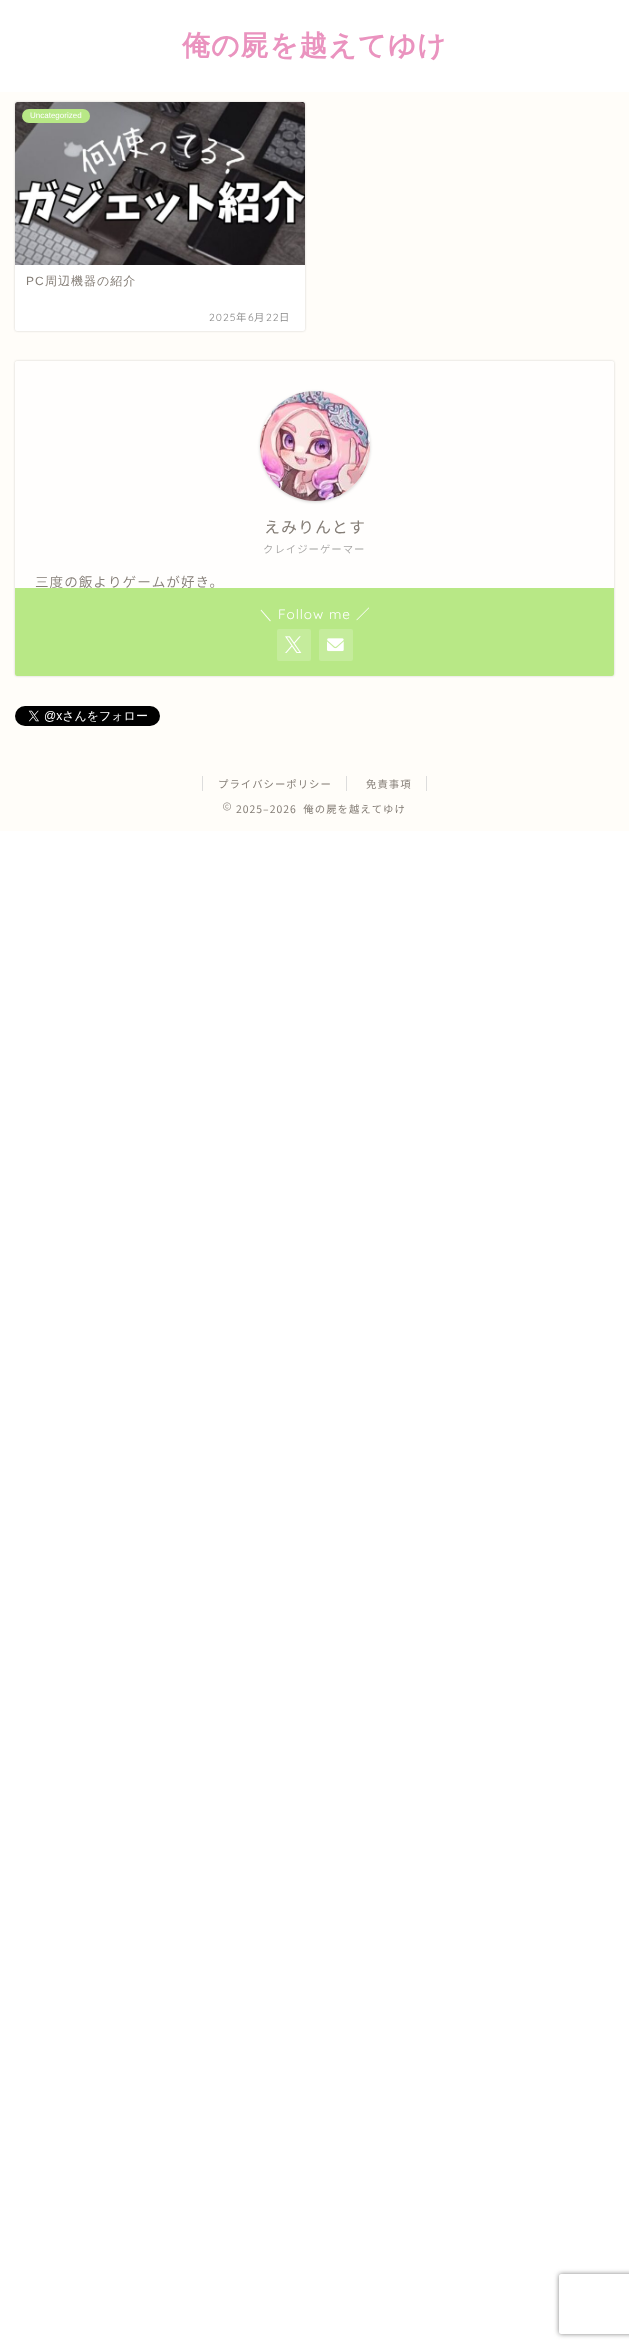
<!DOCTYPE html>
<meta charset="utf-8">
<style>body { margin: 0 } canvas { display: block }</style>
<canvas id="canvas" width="629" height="2348"></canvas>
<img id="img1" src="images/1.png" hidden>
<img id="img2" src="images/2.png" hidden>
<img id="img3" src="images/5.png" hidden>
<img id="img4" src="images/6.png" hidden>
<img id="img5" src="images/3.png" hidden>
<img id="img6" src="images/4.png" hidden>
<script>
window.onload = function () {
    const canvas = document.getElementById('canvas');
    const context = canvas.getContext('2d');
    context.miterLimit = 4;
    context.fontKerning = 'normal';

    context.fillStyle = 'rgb(255, 255, 255)';
    context.fillRect(0, 0, 629, 2348);
    context.fillStyle = 'rgb(255, 253, 249)';
    context.fillRect(0, 92, 629, 739);
    context.fillStyle = 'rgba(0, 0, 0, 0.18)';
    context.filter = 'blur(1px)';
    context.beginPath();
    context.roundRect(15, 102, 290, 229, 2);
    context.fill();
    context.filter = 'none';
    context.fillStyle = 'rgb(255, 255, 255)';
    context.beginPath();
    context.roundRect(15, 102, 290, 229, 2);
    context.fill();
    context.drawImage(document.getElementById('img1'), 15, 102, 290, 163);
    context.fillStyle = 'rgb(184, 232, 134)';
    context.beginPath();
    context.roundRect(22, 109, 68, 14, 7);
    context.fill();
    context.save();
    context.beginPath();
    context.moveTo(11, 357);
    context.lineTo(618, 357);
    context.lineTo(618, 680);
    context.lineTo(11, 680);
    context.closePath();
    context.moveTo(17, 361);
    context.lineTo(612, 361);
    context.bezierCurveTo(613, 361, 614, 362, 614, 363);
    context.lineTo(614, 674);
    context.bezierCurveTo(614, 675, 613, 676, 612, 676);
    context.lineTo(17, 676);
    context.bezierCurveTo(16, 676, 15, 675, 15, 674);
    context.lineTo(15, 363);
    context.bezierCurveTo(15, 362, 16, 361, 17, 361);
    context.closePath();
    context.clip('evenodd');
    context.fillStyle = 'rgba(0, 0, 0, 0.18)';
    context.filter = 'blur(1px)';
    context.beginPath();
    context.roundRect(15, 361, 599, 315, 2);
    context.fill();
    context.filter = 'none';
    context.restore();
    context.fillStyle = 'rgba(255, 255, 255, 0.6)';
    context.beginPath();
    context.roundRect(15, 361, 599, 315, 2);
    context.fill();
    context.fillStyle = 'rgba(0, 0, 0, 0.18)';
    context.filter = 'blur(1.5px)';
    context.beginPath();
    context.roundRect(260, 392, 110, 110, 55);
    context.fill();
    context.filter = 'none';
    context.fillStyle = 'rgb(255, 255, 255)';
    context.beginPath();
    context.arc(315, 446, 55, 0, 2 * Math.PI);
    context.fill();
    context.drawImage(document.getElementById('img2'), 260, 391, 110, 110);
    context.drawImage(document.getElementById('img3'), 15, 706, 145, 20);
    context.fillStyle = 'rgb(221, 221, 221)';
    context.fillRect(346, 776, 1, 15);
    context.fillRect(202, 776, 1, 15);
    context.fillRect(426, 776, 1, 15);
    context.drawImage(document.getElementById('img4'), 223, 802, 8, 9);
    context.save();
    context.beginPath();
    context.moveTo(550, 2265);
    context.lineTo(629, 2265);
    context.lineTo(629, 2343);
    context.lineTo(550, 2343);
    context.closePath();
    context.moveTo(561, 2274);
    context.lineTo(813, 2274);
    context.bezierCurveTo(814, 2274, 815, 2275, 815, 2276);
    context.lineTo(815, 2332);
    context.bezierCurveTo(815, 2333, 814, 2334, 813, 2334);
    context.lineTo(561, 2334);
    context.bezierCurveTo(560, 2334, 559, 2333, 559, 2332);
    context.lineTo(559, 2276);
    context.bezierCurveTo(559, 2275, 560, 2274, 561, 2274);
    context.closePath();
    context.clip('evenodd');
    context.fillStyle = 'rgb(128, 128, 128)';
    context.filter = 'blur(2.5px)';
    context.beginPath();
    context.roundRect(559, 2274, 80, 60, 2);
    context.fill();
    context.filter = 'none';
    context.restore();
    context.letterSpacing = '1px';
    context.font = 'bold 28px WenQuanYi Zen Hei';
    context.fillStyle = 'rgb(234, 147, 191)';
    context.fillText('俺の屍を越えてゆけ', 182, 55);
    context.letterSpacing = '0px';
    context.font = '8px Liberation Sans';
    context.fillStyle = 'rgb(255, 255, 255)';
    context.fillText('Uncategorized', 30, 118);
    context.letterSpacing = '1px';
    context.font = '12px Liberation Sans';
    context.fillStyle = 'rgb(132, 125, 118)';
    context.fillText('PC', 26, 285);
    context.font = '500 12px WenQuanYi Zen Hei';
    context.fillText('周辺機器の紹介', 45, 285);
    context.font = '300 10.4px Quicksand';
    context.fillStyle = 'rgb(136, 136, 136)';
    context.fillText('2025', 209, 321);
    context.font = '300 10.4px Noto Sans JP';
    context.fillText('年', 236, 321);
    context.font = '300 10.4px Quicksand';
    context.fillText('6', 248, 321);
    context.font = '300 10.4px Noto Sans JP';
    context.fillText('月', 254, 321);
    context.font = '300 10.4px Quicksand';
    context.fillText('22', 266, 321);
    context.font = '300 10.4px Noto Sans JP';
    context.fillText('日', 279, 321);
    context.font = '16px Noto Sans JP';
    context.fillStyle = 'rgb(132, 125, 118)';
    context.fillText('えみりんとす', 264, 533);
    context.font = '300 10.4px Noto Sans JP';
    context.fillStyle = 'rgb(166, 165, 164)';
    context.fillText('クレイジーゲーマー', 263, 553);
    context.font = '300 13.6px Noto Sans JP';
    context.fillStyle = 'rgb(132, 125, 118)';
    context.fillText('三度の飯よりゲームが好き。', 35, 587);
    context.fillStyle = 'rgb(184, 232, 134)';
    context.beginPath();
    context.roundRect(15, 588, 599, 88, [0, 0, 2, 2]);
    context.fill();
    context.font = '500 13.6px WenQuanYi Zen Hei';
    context.fillStyle = 'rgb(255, 255, 255)';
    context.fillText('＼', 259, 619);
    context.font = '300 13.6px Quicksand';
    context.fillText('Follow me', 278, 619);
    context.font = '13.6px Noto Sans JP';
    context.fillText('／', 356, 619);
    context.fillStyle = 'rgb(197, 236, 156)';
    context.beginPath();
    context.roundRect(277, 629, 34, 32, 2);
    context.fill();
    context.drawImage(document.getElementById('img5'), 285, 636, 17, 17);
    context.beginPath();
    context.roundRect(319, 629, 34, 32, 2);
    context.fill();
    context.drawImage(document.getElementById('img6'), 327, 638, 17, 14);
    context.font = '10.4px Noto Sans JP';
    context.fillStyle = 'rgb(132, 125, 118)';
    context.fillText('プライバシーポリシー', 218, 788);
    context.fillText('免責事項', 366, 788);
    context.fillText('2025–2026  俺の屍を越えてゆけ', 236, 813);
};
</script>
